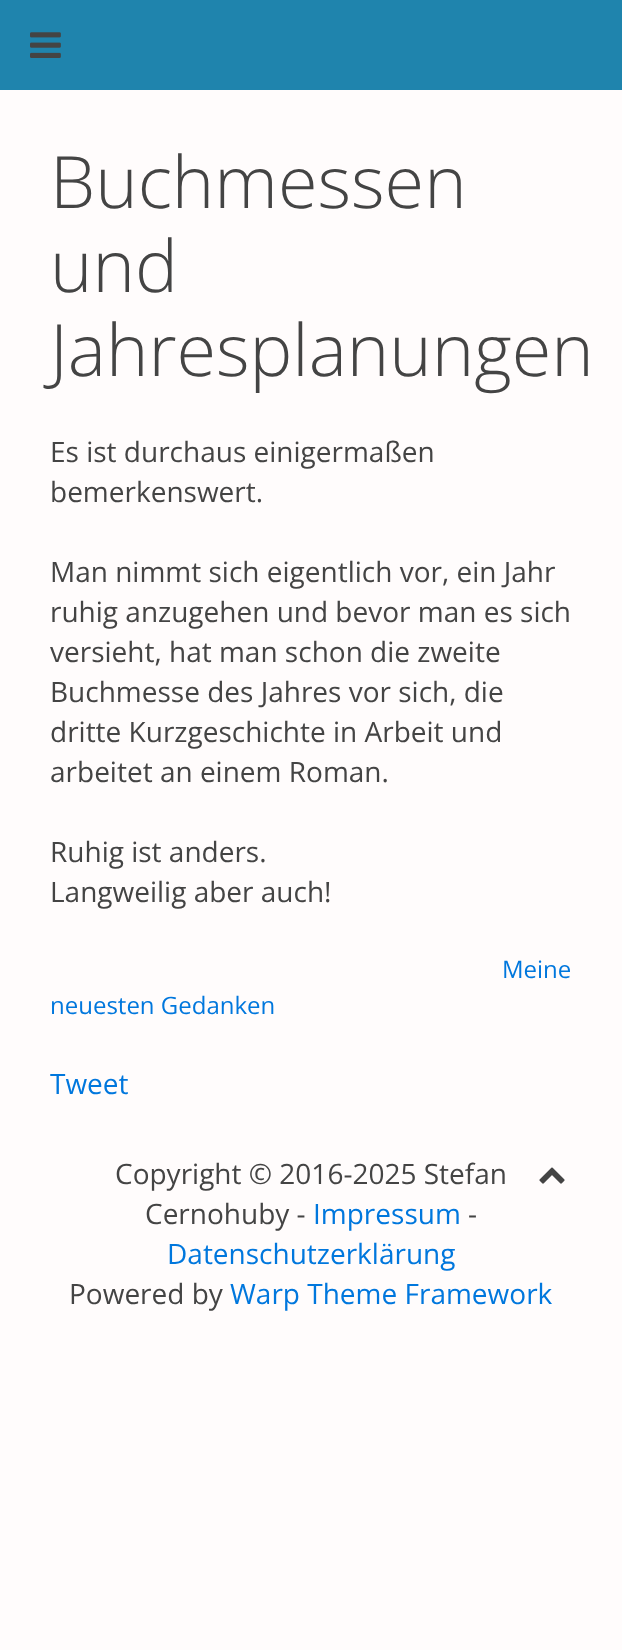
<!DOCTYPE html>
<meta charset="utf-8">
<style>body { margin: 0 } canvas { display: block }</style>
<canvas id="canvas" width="622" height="1650"></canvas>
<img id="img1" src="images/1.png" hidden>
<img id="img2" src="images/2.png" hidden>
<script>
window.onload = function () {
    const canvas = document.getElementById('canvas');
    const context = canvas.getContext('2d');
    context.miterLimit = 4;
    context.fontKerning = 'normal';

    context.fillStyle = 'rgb(255, 252, 252)';
    context.fillRect(0, 0, 622, 1650);
    context.fillStyle = 'rgb(31, 132, 173)';
    context.fillRect(0, 0, 622, 90);
    context.drawImage(document.getElementById('img1'), 30, 32, 31, 26);
    context.drawImage(document.getElementById('img2'), 539, 1167, 26, 17);
    context.font = '300 72px Open Sans';
    context.fillStyle = 'rgb(68, 68, 68)';
    context.fillText('Buchmessen', 50, 208);
    context.fillText('und', 50, 292);
    context.fillText('Jahresplanungen', 50, 376);
    context.font = '28px Open Sans';
    context.fillText('Es ist durchaus einigermaßen', 50, 462);
    context.fillText('bemerkenswert.', 50, 502);
    context.fillText('Man nimmt sich eigentlich vor, ein Jahr', 50, 582);
    context.fillText('ruhig anzugehen und bevor man es sich', 50, 622);
    context.fillText('versieht, hat man schon die zweite', 50, 662);
    context.fillText('Buchmesse des Jahres vor sich, die', 50, 702);
    context.fillText('dritte Kurzgeschichte in Arbeit und', 50, 742);
    context.fillText('arbeitet an einem Roman.', 50, 782);
    context.fillText('Ruhig ist anders.', 50, 862);
    context.fillText('Langweilig aber auch!', 50, 902);
    context.font = '24px Open Sans';
    context.fillStyle = 'rgb(0, 119, 221)';
    context.fillText('Meine', 502, 978);
    context.fillText('neuesten Gedanken', 50, 1014);
    context.font = '28px Open Sans';
    context.fillText('Tweet', 50, 1094);
    context.fillStyle = 'rgb(68, 68, 68)';
    context.fillText('Copyright © 2016-2025 Stefan', 115, 1184);
    context.fillText('Cernohuby -', 145, 1224);
    context.fillStyle = 'rgb(0, 119, 221)';
    context.fillText('Impressum', 313, 1224);
    context.fillStyle = 'rgb(68, 68, 68)';
    context.fillText('-', 468, 1224);
    context.fillStyle = 'rgb(0, 119, 221)';
    context.fillText('Datenschutzerklärung', 167, 1264);
    context.fillStyle = 'rgb(68, 68, 68)';
    context.fillText('Powered by', 69, 1304);
    context.fillStyle = 'rgb(0, 119, 221)';
    context.fillText('Warp Theme Framework', 230, 1304);
};
</script>
